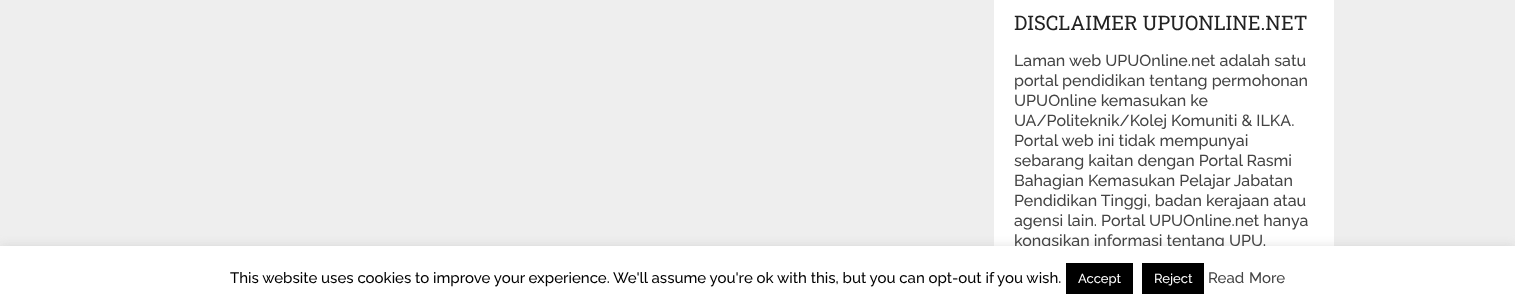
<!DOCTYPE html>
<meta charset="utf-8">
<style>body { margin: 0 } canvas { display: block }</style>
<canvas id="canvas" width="1515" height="306"></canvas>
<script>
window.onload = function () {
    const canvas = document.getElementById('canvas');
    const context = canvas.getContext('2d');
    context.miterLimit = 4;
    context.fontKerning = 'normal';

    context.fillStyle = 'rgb(238, 238, 238)';
    context.fillRect(0, 0, 1515, 306);
    context.fillStyle = 'rgb(255, 255, 255)';
    context.fillRect(994, 0, 340, 246);
    context.fillStyle = 'rgba(172, 171, 171, 0.3)';
    context.filter = 'blur(5px)';
    context.beginPath();
    context.rect(0, 245, 1515, 60);
    context.fill();
    context.filter = 'none';
    context.font = '20px Roboto Slab';
    context.fillStyle = 'rgb(34, 34, 34)';
    context.fillText('DISCLAIMER UPUONLINE.NET', 1014, 30);
    context.font = '500 16px Raleway';
    context.fillStyle = 'rgb(68, 68, 68)';
    context.fillText('Laman web UPUOnline.net adalah satu', 1014, 66);
    context.fillText('portal pendidikan tentang permohonan', 1014, 86);
    context.fillText('UPUOnline kemasukan ke', 1014, 106);
    context.fillText('UA/Politeknik/Kolej Komuniti & ILKA.', 1014, 126);
    context.fillText('Portal web ini tidak mempunyai', 1014, 146);
    context.fillText('sebarang kaitan dengan Portal Rasmi', 1014, 166);
    context.fillText('Bahagian Kemasukan Pelajar Jabatan', 1014, 186);
    context.fillText('Pendidikan Tinggi, badan kerajaan atau', 1014, 206);
    context.fillText('agensi lain. Portal UPUOnline.net hanya', 1014, 226);
    context.fillText('kongsikan informasi tentang UPU,', 1014, 246);
    context.fillStyle = 'rgb(255, 255, 255)';
    context.fillRect(0, 246, 1515, 60);
    context.font = '500 15px Raleway';
    context.fillStyle = 'rgb(0, 0, 0)';
    context.fillText('This website uses cookies to improve your experience. We\'ll assume you\'re ok with this, but you can opt-out if you wish.', 230, 283);
    context.fillRect(1066, 263, 67, 31);
    context.font = '500 13px Raleway';
    context.fillStyle = 'rgb(255, 255, 255)';
    context.fillText('Accept', 1078, 283);
    context.fillStyle = 'rgb(0, 0, 0)';
    context.fillRect(1142, 263, 62, 31);
    context.fillStyle = 'rgb(255, 255, 255)';
    context.fillText('Reject', 1154, 283);
    context.wordSpacing = '1px';
    context.font = '500 15px Raleway';
    context.fillStyle = 'rgb(68, 68, 68)';
    context.fillText('Read More', 1208, 283);
};
</script>
